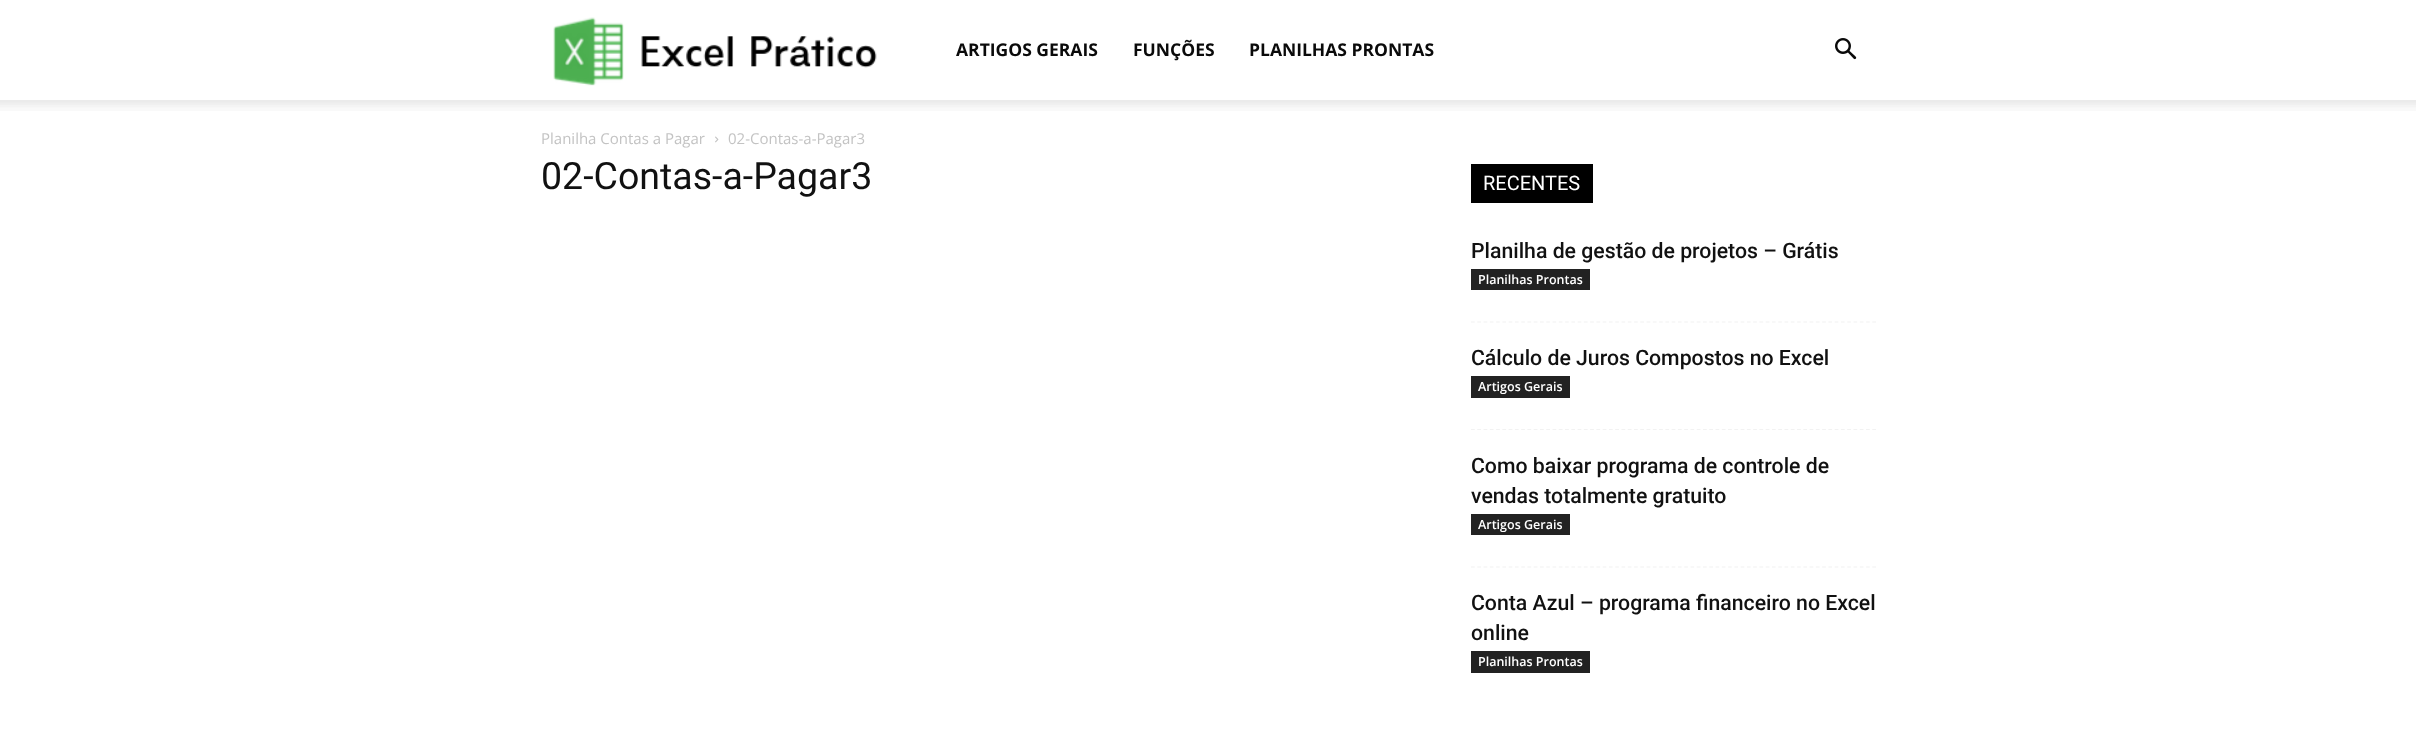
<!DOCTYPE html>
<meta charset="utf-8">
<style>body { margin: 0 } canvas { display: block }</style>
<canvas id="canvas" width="2416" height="746"></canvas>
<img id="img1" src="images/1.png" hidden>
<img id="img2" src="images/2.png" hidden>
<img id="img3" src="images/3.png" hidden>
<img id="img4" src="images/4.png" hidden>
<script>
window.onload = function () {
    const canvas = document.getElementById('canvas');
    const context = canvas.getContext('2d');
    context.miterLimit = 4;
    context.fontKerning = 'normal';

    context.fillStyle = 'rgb(255, 255, 255)';
    context.fillRect(0, 0, 2416, 746);
    context.drawImage(document.getElementById('img1'), 553, 17, 324, 69);
    context.drawImage(document.getElementById('img2'), 1835, 38, 22, 22);
    context.drawImage(document.getElementById('img3'), 0, 100, 2416, 11);
    context.drawImage(document.getElementById('img4'), 715, 136, 4, 7);
    context.fillStyle = 'rgb(0, 0, 0)';
    context.fillRect(1471, 164, 122, 39);
    context.beginPath();
    context.moveTo(1471, 322);
    context.lineTo(1876, 322);
    context.strokeStyle = 'rgb(242, 242, 242)';
    context.lineWidth = 1.2;
    context.setLineDash([3.75, 2.52]);
    context.stroke();
    context.fillStyle = 'rgb(34, 34, 34)';
    context.fillRect(1471, 269, 119, 21);
    context.beginPath();
    context.moveTo(1471, 429.5);
    context.lineTo(1876, 429.5);
    context.stroke();
    context.fillRect(1471, 376, 99, 22);
    context.beginPath();
    context.moveTo(1471, 567);
    context.lineTo(1876, 567);
    context.stroke();
    context.fillRect(1471, 514, 99, 21);
    context.fillRect(1471, 651, 119, 22);
    context.font = 'bold 17.5px Open Sans';
    context.fillStyle = 'rgb(10, 10, 10)';
    context.fillText('ARTIGOS GERAIS', 956, 56);
    context.fillText('FUNÇÕES', 1133, 56);
    context.fillText('PLANILHAS PRONTAS', 1249, 56);
    context.font = '15px Open Sans';
    context.fillStyle = 'rgb(195, 195, 195)';
    context.fillText('Planilha Contas a Pagar', 541, 144);
    context.fillText('02-Contas-a-Pagar3', 728, 144);
    context.font = '37.5px Roboto';
    context.fillStyle = 'rgb(17, 17, 17)';
    context.fillText('02-Contas-a-Pagar3', 541, 189);
    context.font = '20px Roboto';
    context.fillStyle = 'rgb(255, 255, 255)';
    context.fillText('RECENTES', 1483, 190);
    context.font = '500 21.25px Roboto';
    context.fillStyle = 'rgb(17, 17, 17)';
    context.fillText('Planilha de gestão de projetos – Grátis', 1471, 258);
    context.font = '600 12.5px Open Sans';
    context.fillStyle = 'rgb(255, 255, 255)';
    context.fillText('Planilhas Prontas', 1478, 284);
    context.font = '500 21.25px Roboto';
    context.fillStyle = 'rgb(17, 17, 17)';
    context.fillText('Cálculo de Juros Compostos no Excel', 1471, 365);
    context.font = '600 12.5px Open Sans';
    context.fillStyle = 'rgb(255, 255, 255)';
    context.fillText('Artigos Gerais', 1478, 391);
    context.font = '500 21.25px Roboto';
    context.fillStyle = 'rgb(17, 17, 17)';
    context.fillText('Como baixar programa de controle de', 1471, 473);
    context.fillText('vendas totalmente gratuito', 1471, 503);
    context.font = '600 12.5px Open Sans';
    context.fillStyle = 'rgb(255, 255, 255)';
    context.fillText('Artigos Gerais', 1478, 529);
    context.font = '500 21.25px Roboto';
    context.fillStyle = 'rgb(17, 17, 17)';
    context.fillText('Conta Azul – programa financeiro no Excel', 1471, 610);
    context.fillText('online', 1471, 640);
    context.font = '600 12.5px Open Sans';
    context.fillStyle = 'rgb(255, 255, 255)';
    context.fillText('Planilhas Prontas', 1478, 666);
};
</script>
